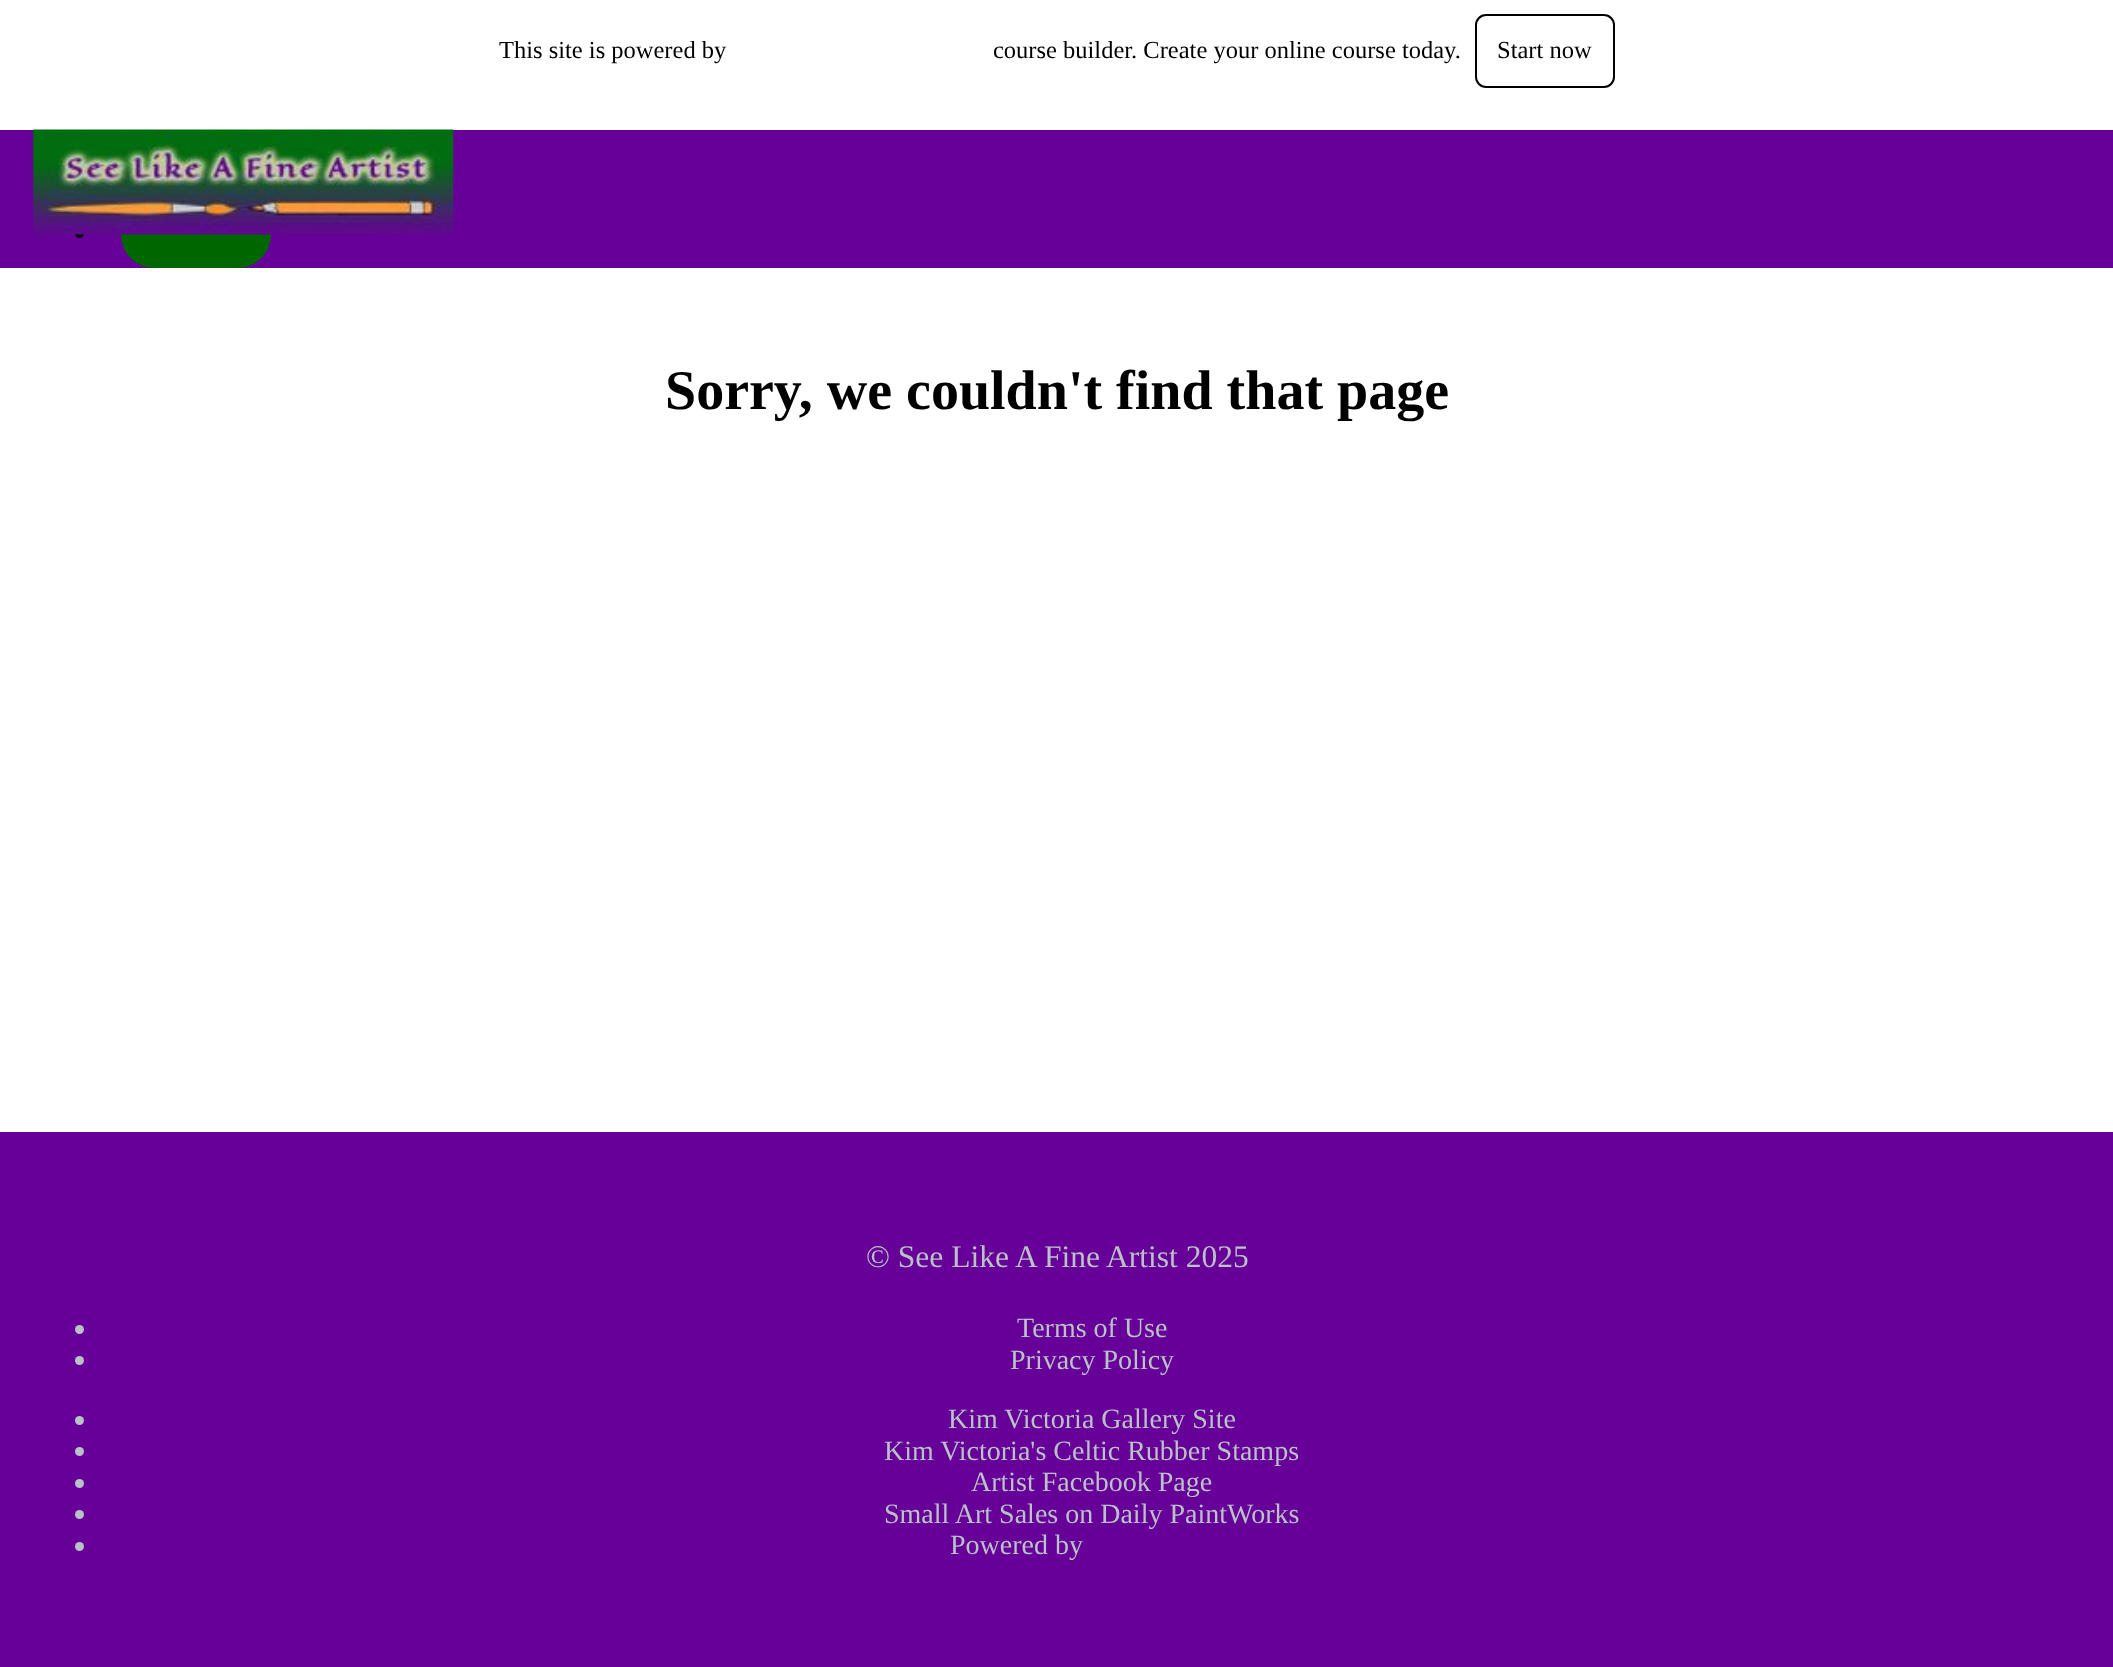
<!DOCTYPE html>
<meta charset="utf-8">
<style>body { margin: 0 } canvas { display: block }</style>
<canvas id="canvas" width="2113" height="1667"></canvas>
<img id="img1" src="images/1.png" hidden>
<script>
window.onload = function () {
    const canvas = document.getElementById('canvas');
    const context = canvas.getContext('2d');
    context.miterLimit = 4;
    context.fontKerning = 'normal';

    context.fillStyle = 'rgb(255, 255, 255)';
    context.fillRect(0, 0, 2113, 1667);
    context.beginPath();
    context.roundRect(1476, 15, 138, 72, 10);
    context.strokeStyle = 'rgb(0, 0, 0)';
    context.lineWidth = 2;
    context.stroke();
    context.fillStyle = 'rgb(102, 0, 153)';
    context.fillRect(0, 130, 2113, 138);
    context.fillStyle = 'rgb(0, 0, 0)';
    context.beginPath();
    context.arc(79.5, 233.5, 4.5, 0, 2 * Math.PI);
    context.fill();
    context.fillStyle = 'rgb(0, 102, 0)';
    context.beginPath();
    context.roundRect(122, 202, 148, 65, 32.5);
    context.fill();
    context.strokeStyle = 'rgb(0, 102, 0)';
    context.stroke();
    context.drawImage(document.getElementById('img1'), 33, 129, 421, 106);
    context.fillStyle = 'rgb(102, 0, 153)';
    context.fillRect(0, 1132, 2113, 535);
    context.fillStyle = 'rgb(186, 193, 199)';
    context.beginPath();
    context.arc(79.5, 1329.5, 4.5, 0, 2 * Math.PI);
    context.fill();
    context.beginPath();
    context.arc(79.5, 1360.5, 4.5, 0, 2 * Math.PI);
    context.fill();
    context.beginPath();
    context.arc(79.5, 1420.5, 4.5, 0, 2 * Math.PI);
    context.fill();
    context.beginPath();
    context.arc(79.5, 1451.5, 4.5, 0, 2 * Math.PI);
    context.fill();
    context.beginPath();
    context.arc(79.5, 1483.5, 4.5, 0, 2 * Math.PI);
    context.fill();
    context.beginPath();
    context.arc(79.5, 1514.5, 4.5, 0, 2 * Math.PI);
    context.fill();
    context.beginPath();
    context.arc(79.5, 1546.5, 4.5, 0, 2 * Math.PI);
    context.fill();
    context.font = '24.5px Liberation Serif';
    context.fillStyle = 'rgb(0, 0, 0)';
    context.fillText('This site is powered by', 499, 58);
    context.fillText('course builder. Create your online course today.', 993, 58);
    context.fillText('Start now', 1497, 58);
    context.font = 'bold 56px Liberation Serif';
    context.fillText('Sorry, we couldn\'t find that page', 665, 409);
    context.font = '31.5px Liberation Serif';
    context.fillStyle = 'rgb(186, 193, 199)';
    context.fillText('© See Like A Fine Artist 2025', 866, 1267);
    context.font = '28px Liberation Serif';
    context.fillText('Terms of Use', 1017, 1337);
    context.fillText('Privacy Policy', 1010, 1369);
    context.fillText('Kim Victoria Gallery Site', 948, 1428);
    context.fillText('Kim Victoria\'s Celtic Rubber Stamps', 884, 1460);
    context.fillText('Artist Facebook Page', 971, 1491);
    context.fillText('Small Art Sales on Daily PaintWorks', 884, 1523);
    context.fillText('Powered by', 950, 1554);
};
</script>
